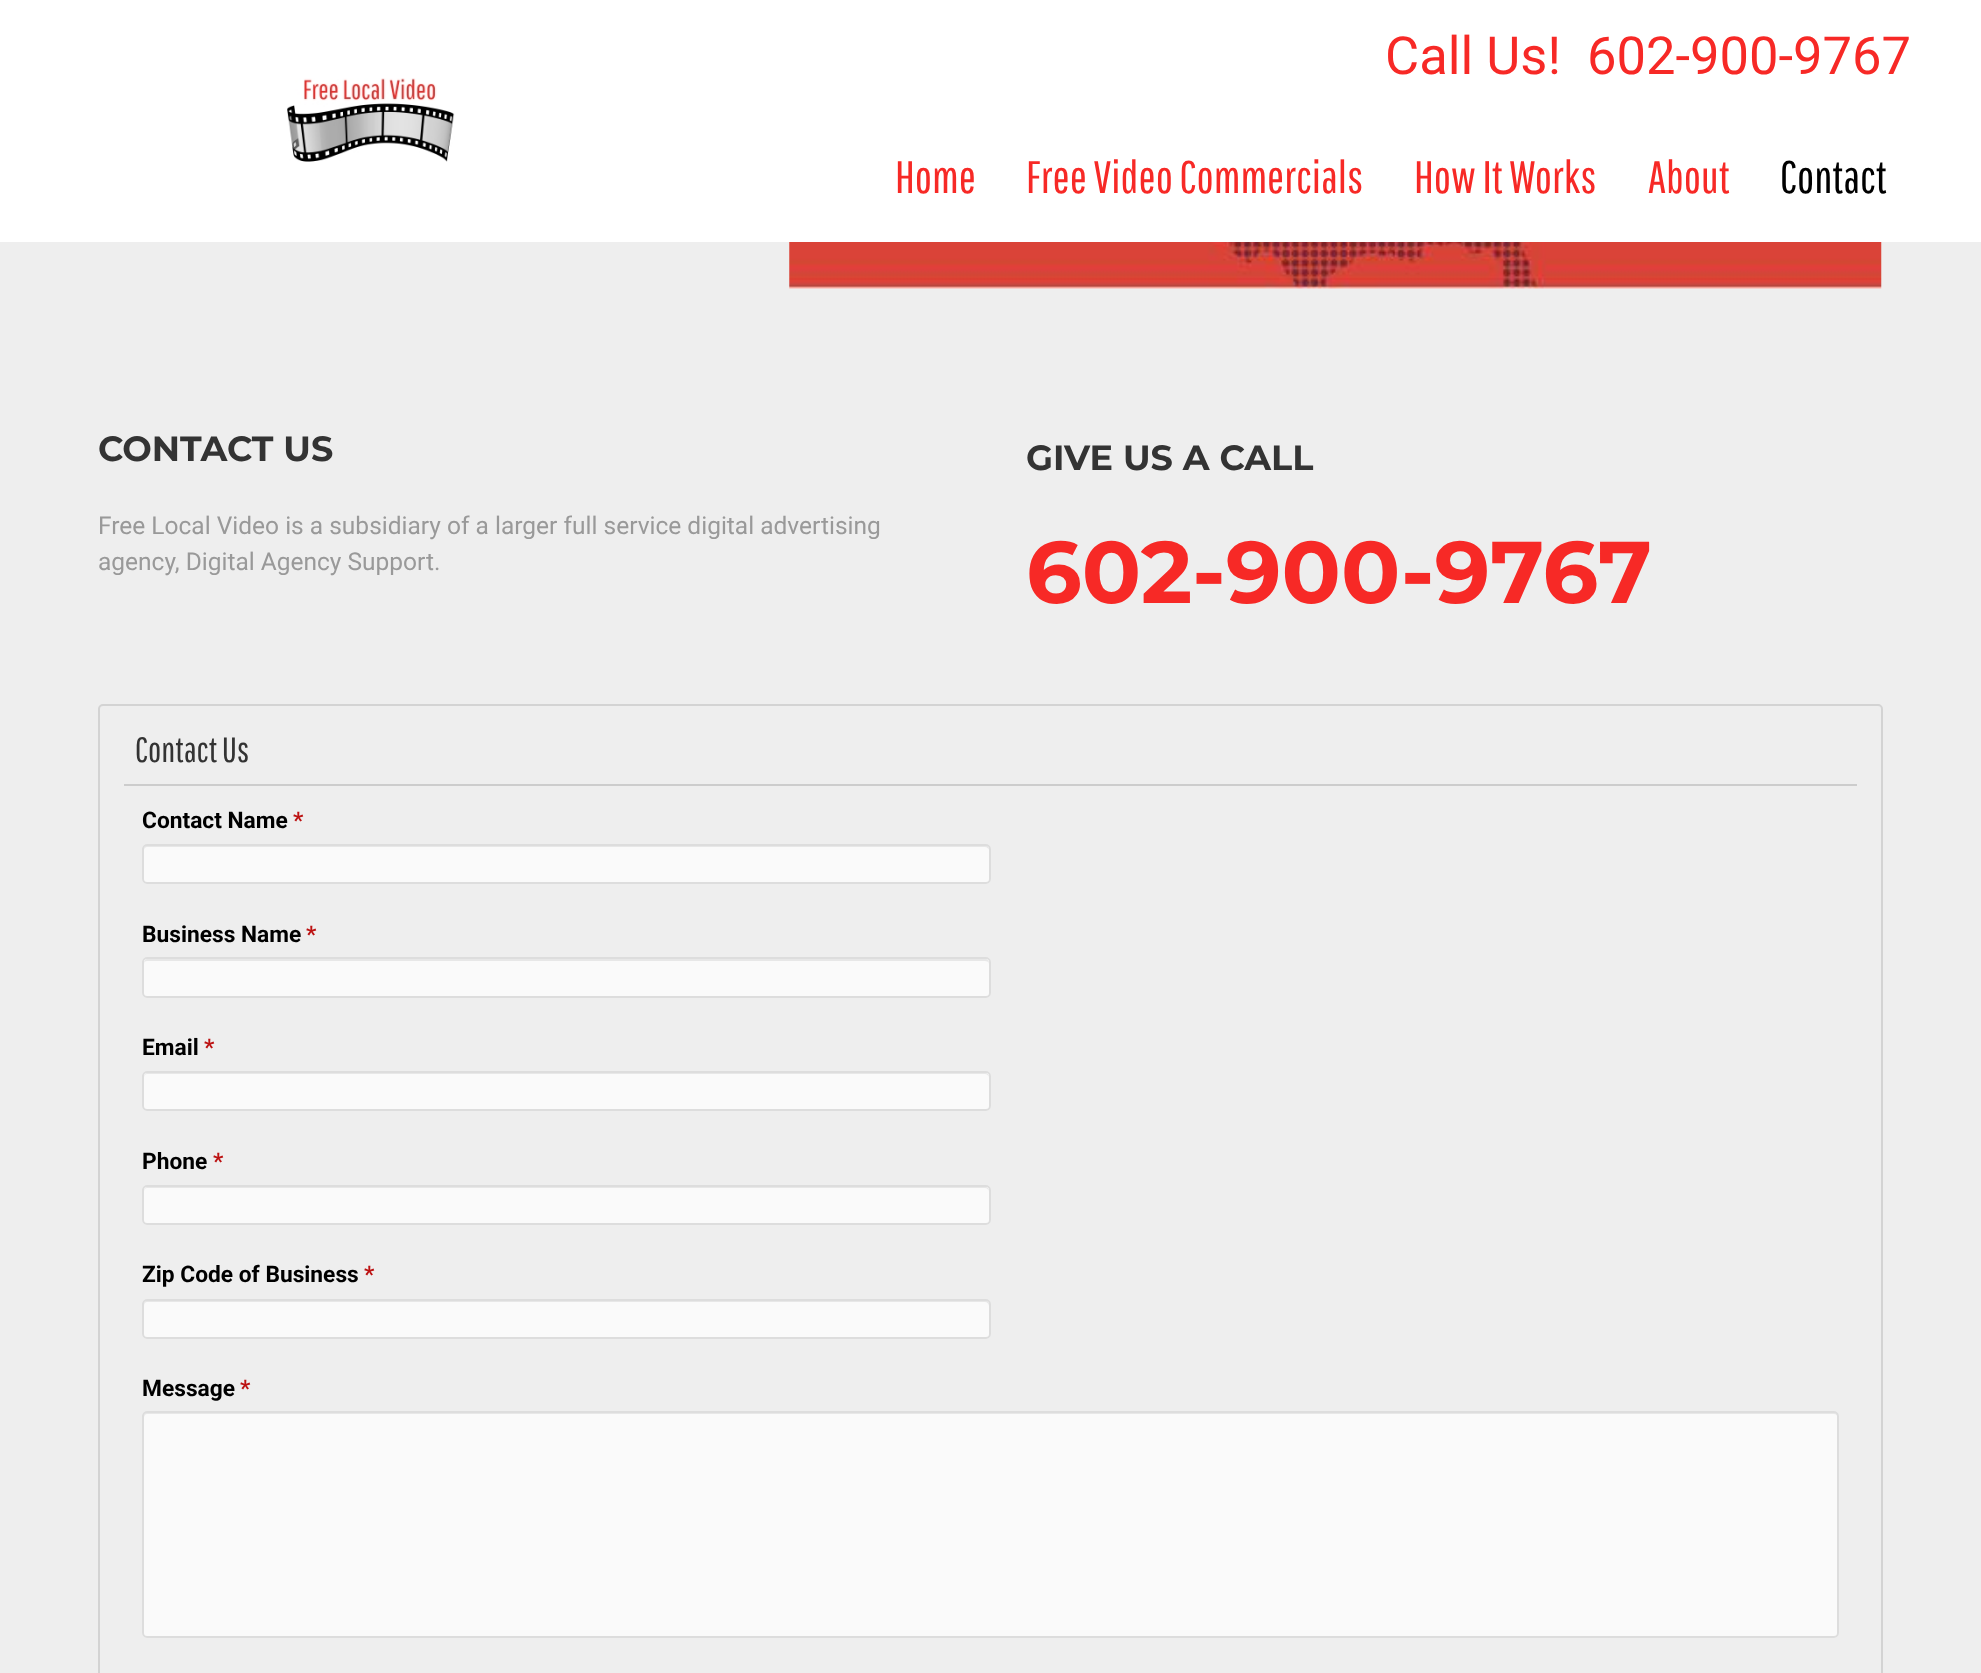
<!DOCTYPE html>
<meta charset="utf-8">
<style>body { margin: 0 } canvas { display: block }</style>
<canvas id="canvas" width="1981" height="1673"></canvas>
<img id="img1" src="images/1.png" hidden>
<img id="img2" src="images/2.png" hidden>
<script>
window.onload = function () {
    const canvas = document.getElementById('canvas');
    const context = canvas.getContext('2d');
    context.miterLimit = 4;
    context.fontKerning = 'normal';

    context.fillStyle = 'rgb(238, 238, 238)';
    context.fillRect(0, 0, 1981, 1673);
    context.fillStyle = 'rgb(255, 255, 255)';
    context.fillRect(0, 0, 1981, 242);
    context.drawImage(document.getElementById('img1'), 287, 78, 168, 84);
    context.drawImage(document.getElementById('img2'), 789, 242, 1093, 47);
    context.beginPath();
    context.roundRect(99, 705, 1783, 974, 4);
    context.strokeStyle = 'rgb(211, 211, 211)';
    context.lineWidth = 2;
    context.stroke();
    context.fillStyle = 'rgb(204, 204, 204)';
    context.fillRect(124, 784, 1733, 2);
    context.fillStyle = 'rgb(250, 250, 250)';
    context.beginPath();
    context.roundRect(142, 844, 849, 40, 5);
    context.fill();
    context.fillStyle = 'rgb(231, 231, 231)';
    context.beginPath();
    context.moveTo(147, 847);
    context.lineTo(985, 847);
    context.bezierCurveTo(987, 847, 989, 849, 989, 850);
    context.bezierCurveTo(989, 847, 988, 845, 985, 845);
    context.lineTo(148, 845);
    context.bezierCurveTo(145, 845, 144, 847, 144, 850);
    context.bezierCurveTo(144, 849, 145, 847, 147, 847);
    context.closePath();
    context.fill();
    context.beginPath();
    context.roundRect(143, 845, 847, 38, 4);
    context.strokeStyle = 'rgb(221, 221, 221)';
    context.stroke();
    context.fillStyle = 'rgb(250, 250, 250)';
    context.beginPath();
    context.roundRect(142, 957, 849, 41, 5);
    context.fill();
    context.fillStyle = 'rgb(231, 231, 231)';
    context.beginPath();
    context.moveTo(147, 961);
    context.lineTo(985, 961);
    context.bezierCurveTo(987, 961, 989, 962, 989, 964);
    context.bezierCurveTo(989, 961, 988, 959, 985, 959);
    context.lineTo(148, 959);
    context.bezierCurveTo(145, 959, 144, 961, 144, 964);
    context.bezierCurveTo(144, 962, 145, 961, 147, 961);
    context.closePath();
    context.fill();
    context.beginPath();
    context.roundRect(143, 958, 847, 39, 4);
    context.stroke();
    context.fillStyle = 'rgb(250, 250, 250)';
    context.beginPath();
    context.roundRect(142, 1071, 849, 40, 5);
    context.fill();
    context.fillStyle = 'rgb(231, 231, 231)';
    context.beginPath();
    context.moveTo(147, 1074);
    context.lineTo(985, 1074);
    context.bezierCurveTo(987, 1074, 989, 1076, 989, 1078);
    context.bezierCurveTo(989, 1075, 988, 1073, 985, 1073);
    context.lineTo(148, 1073);
    context.bezierCurveTo(145, 1073, 144, 1075, 144, 1078);
    context.bezierCurveTo(144, 1076, 145, 1074, 147, 1074);
    context.closePath();
    context.fill();
    context.beginPath();
    context.roundRect(143, 1072, 847, 38, 4);
    context.stroke();
    context.fillStyle = 'rgb(250, 250, 250)';
    context.beginPath();
    context.roundRect(142, 1185, 849, 40, 5);
    context.fill();
    context.fillStyle = 'rgb(231, 231, 231)';
    context.beginPath();
    context.moveTo(147, 1188);
    context.lineTo(985, 1188);
    context.bezierCurveTo(987, 1188, 989, 1190, 989, 1192);
    context.bezierCurveTo(989, 1189, 988, 1187, 985, 1187);
    context.lineTo(148, 1187);
    context.bezierCurveTo(145, 1187, 144, 1189, 144, 1192);
    context.bezierCurveTo(144, 1190, 145, 1188, 147, 1188);
    context.closePath();
    context.fill();
    context.beginPath();
    context.roundRect(143, 1186, 847, 38, 4);
    context.stroke();
    context.fillStyle = 'rgb(250, 250, 250)';
    context.beginPath();
    context.roundRect(142, 1299, 849, 40, 5);
    context.fill();
    context.fillStyle = 'rgb(231, 231, 231)';
    context.beginPath();
    context.moveTo(147, 1302);
    context.lineTo(985, 1302);
    context.bezierCurveTo(987, 1302, 989, 1304, 989, 1306);
    context.lineTo(989, 1304);
    context.bezierCurveTo(989, 1302, 987, 1300, 985, 1300);
    context.lineTo(148, 1300);
    context.bezierCurveTo(146, 1300, 144, 1302, 144, 1304);
    context.lineTo(144, 1306);
    context.bezierCurveTo(144, 1304, 145, 1302, 147, 1302);
    context.closePath();
    context.fill();
    context.beginPath();
    context.roundRect(143, 1300, 847, 38, 4);
    context.stroke();
    context.fillStyle = 'rgb(250, 250, 250)';
    context.beginPath();
    context.roundRect(142, 1411, 1697, 227, 5);
    context.fill();
    context.fillStyle = 'rgb(231, 231, 231)';
    context.beginPath();
    context.moveTo(147, 1414);
    context.lineTo(1834, 1414);
    context.bezierCurveTo(1836, 1414, 1838, 1416, 1838, 1418);
    context.bezierCurveTo(1838, 1415, 1838, 1412, 1834, 1412);
    context.lineTo(148, 1412);
    context.bezierCurveTo(144, 1412, 144, 1415, 144, 1418);
    context.bezierCurveTo(144, 1416, 145, 1414, 147, 1414);
    context.closePath();
    context.fill();
    context.beginPath();
    context.roundRect(143, 1412, 1695, 225, 4);
    context.stroke();
    context.font = '52.5px Roboto';
    context.fillStyle = 'rgb(247, 41, 38)';
    context.fillText('Call Us!  602-900-9767', 1385, 74);
    context.font = '45.5px Pathway Gothic One';
    context.fillText('Home', 895, 193);
    context.fillText('Free Video Commercials', 1026, 193);
    context.fillText('How It Works', 1414, 193);
    context.fillText('About', 1648, 193);
    context.fillStyle = 'rgb(0, 0, 0)';
    context.fillText('Contact', 1780, 193);
    context.font = '100 35px Montserrat';
    context.fillStyle = 'rgb(51, 51, 51)';
    context.fillText('CONTACT US', 98, 461);
    context.font = '24.5px Roboto';
    context.fillStyle = 'rgb(153, 153, 153)';
    context.fillText('Free Local Video is a subsidiary of a larger full service digital advertising', 98, 534);
    context.fillText('agency, Digital Agency Support.', 98, 570);
    context.font = '100 35px Montserrat';
    context.fillStyle = 'rgb(51, 51, 51)';
    context.fillText('GIVE US A CALL', 1026, 470);
    context.font = '100 87.5px Montserrat';
    context.fillStyle = 'rgb(247, 41, 38)';
    context.fillText('602-900-9767', 1026, 603);
    context.font = '35px Pathway Gothic One';
    context.fillStyle = 'rgb(51, 51, 51)';
    context.fillText('Contact Us', 135, 762);
    context.font = 'bold 22.75px Roboto';
    context.fillStyle = 'rgb(0, 0, 0)';
    context.fillText('Contact Name', 142, 828);
    context.fillStyle = 'rgb(188, 18, 18)';
    context.fillText('*', 293, 828);
    context.fillStyle = 'rgb(0, 0, 0)';
    context.fillText('Business Name', 142, 942);
    context.fillStyle = 'rgb(188, 18, 18)';
    context.fillText('*', 306, 942);
    context.fillStyle = 'rgb(0, 0, 0)';
    context.fillText('Email', 142, 1055);
    context.fillStyle = 'rgb(188, 18, 18)';
    context.fillText('*', 204, 1055);
    context.fillStyle = 'rgb(0, 0, 0)';
    context.fillText('Phone', 142, 1169);
    context.fillStyle = 'rgb(188, 18, 18)';
    context.fillText('*', 213, 1169);
    context.fillStyle = 'rgb(0, 0, 0)';
    context.fillText('Zip Code of Business', 142, 1282);
    context.fillStyle = 'rgb(188, 18, 18)';
    context.fillText('*', 364, 1282);
    context.fillStyle = 'rgb(0, 0, 0)';
    context.fillText('Message', 142, 1396);
    context.fillStyle = 'rgb(188, 18, 18)';
    context.fillText('*', 240, 1396);
};
</script>
